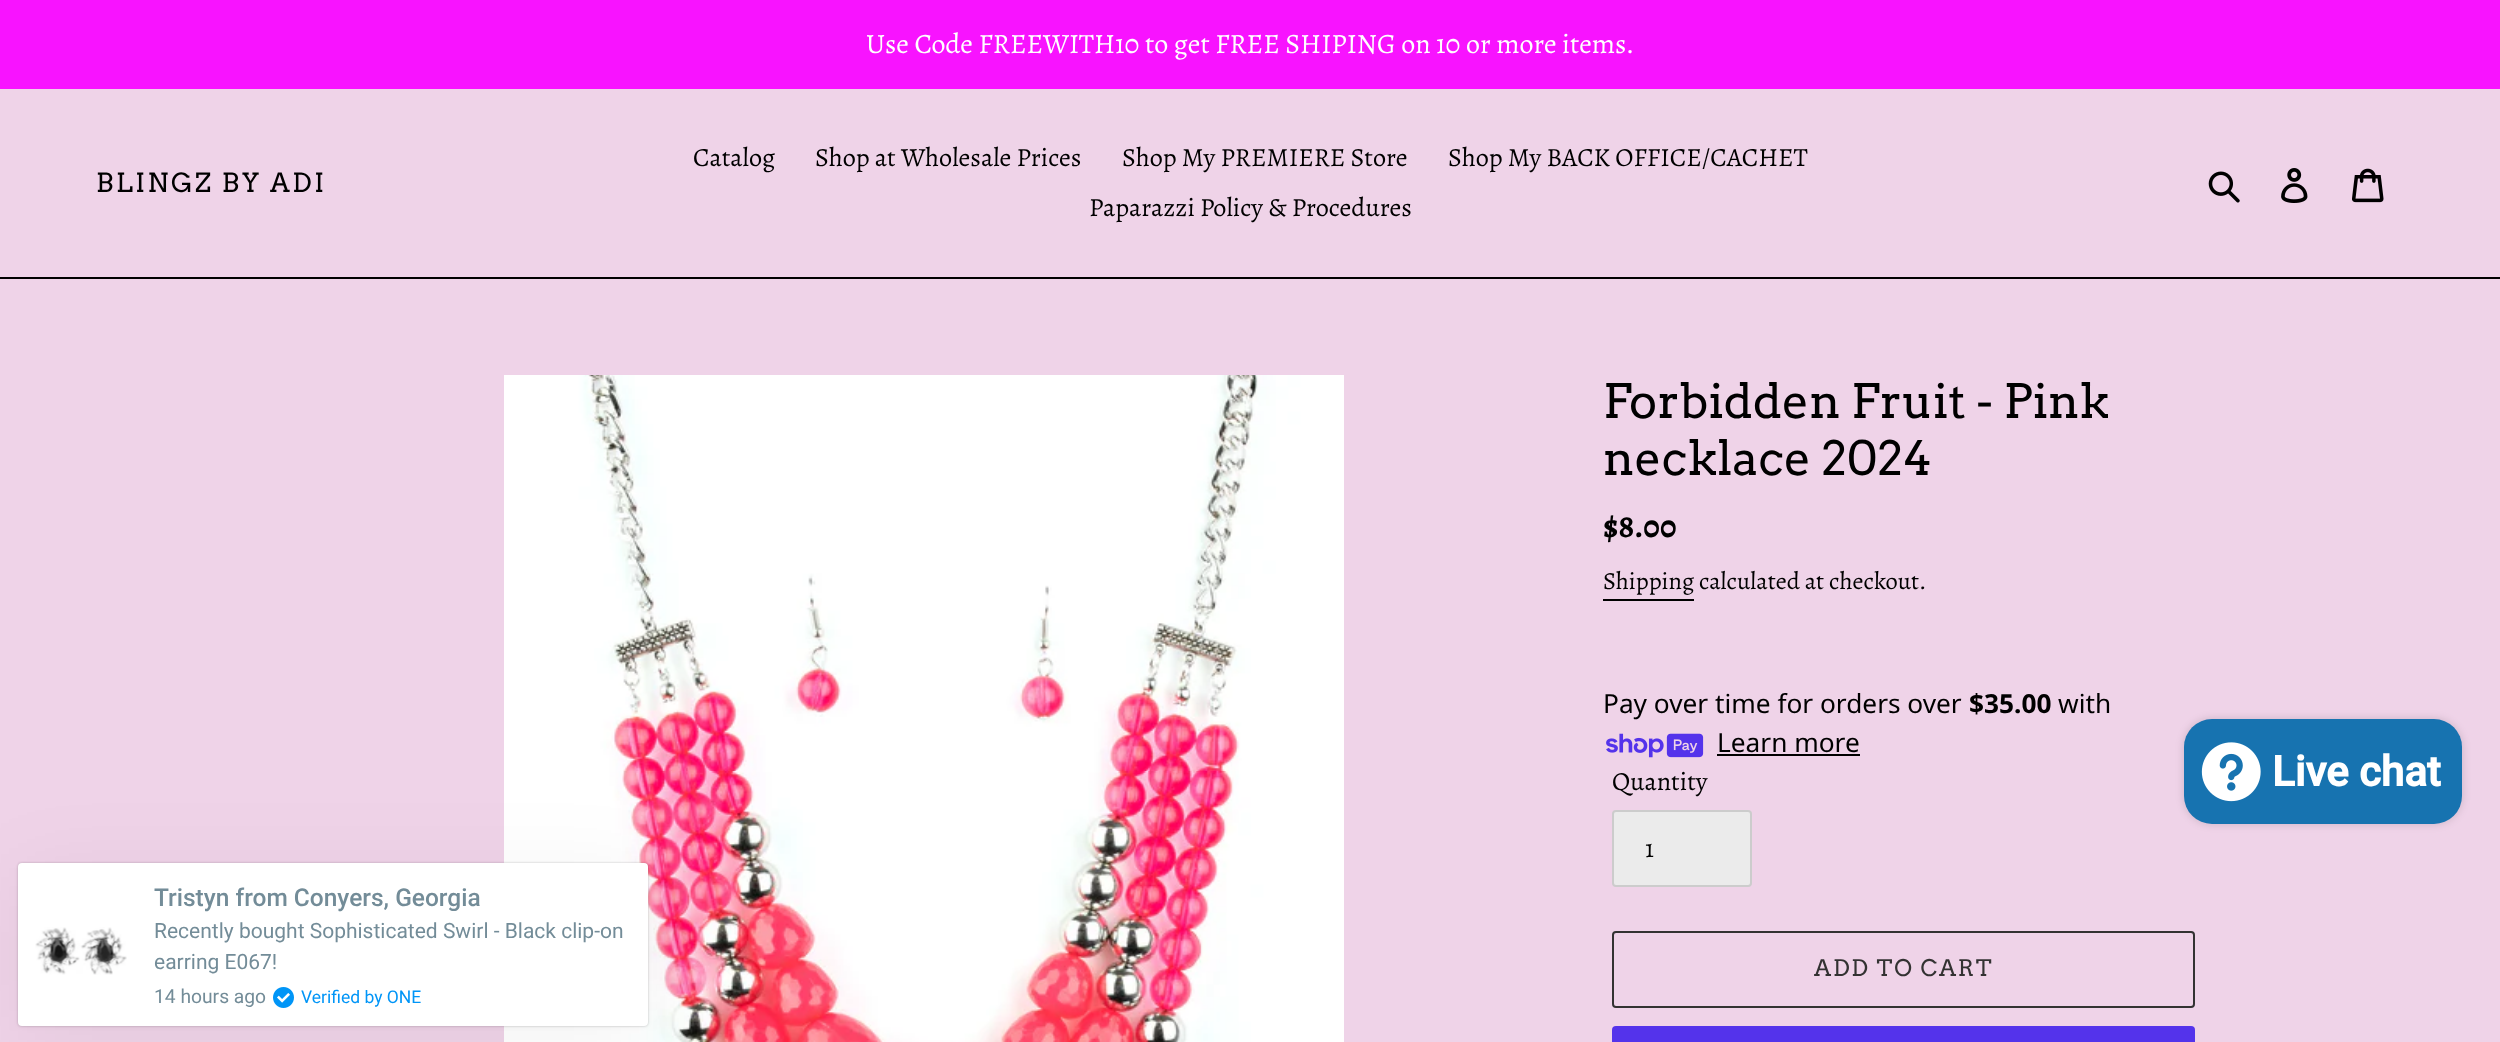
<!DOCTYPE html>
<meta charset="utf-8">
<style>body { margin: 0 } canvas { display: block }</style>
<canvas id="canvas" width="2500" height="1042"></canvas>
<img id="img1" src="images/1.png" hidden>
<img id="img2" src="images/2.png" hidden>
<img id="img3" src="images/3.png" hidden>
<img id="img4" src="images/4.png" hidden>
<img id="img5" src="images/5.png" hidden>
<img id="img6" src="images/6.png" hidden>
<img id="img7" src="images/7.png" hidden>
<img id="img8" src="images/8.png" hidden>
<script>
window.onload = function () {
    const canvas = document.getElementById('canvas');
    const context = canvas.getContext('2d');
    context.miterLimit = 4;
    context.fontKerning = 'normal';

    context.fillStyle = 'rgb(239, 211, 232)';
    context.fillRect(0, 0, 2500, 1042);
    context.fillStyle = 'rgb(248, 19, 255)';
    context.fillRect(0, 0, 2500, 89);
    context.fillStyle = 'rgb(0, 0, 0)';
    context.fillRect(0, 277, 2500, 2);
    context.drawImage(document.getElementById('img1'), 2208, 171, 32, 32);
    context.drawImage(document.getElementById('img2'), 2281, 168, 27, 35);
    context.drawImage(document.getElementById('img3'), 2352, 168, 32, 35);
    context.drawImage(document.getElementById('img4'), 504, 375, 840, 667);
    context.fillRect(1603, 599, 91, 2);
    context.drawImage(document.getElementById('img5'), 1606, 733, 98, 25);
    context.fillRect(1717, 754, 143, 2);
    context.fillStyle = 'rgb(235, 235, 235)';
    context.beginPath();
    context.roundRect(1613, 811, 138, 75, 3);
    context.fill();
    context.strokeStyle = 'rgb(204, 204, 204)';
    context.lineWidth = 2;
    context.stroke();
    context.beginPath();
    context.roundRect(1613, 932, 581, 75, 3);
    context.strokeStyle = 'rgb(51, 50, 50)';
    context.stroke();
    context.fillStyle = 'rgb(84, 51, 235)';
    context.beginPath();
    context.roundRect(1612, 1026, 583, 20, 4);
    context.fill();
    context.fillStyle = 'rgba(0, 0, 0, 0.15)';
    context.filter = 'blur(4.5px)';
    context.beginPath();
    context.roundRect(2184, 719, 278, 105, 28);
    context.fill();
    context.filter = 'none';
    context.fillStyle = 'rgb(23, 115, 176)';
    context.beginPath();
    context.roundRect(2184, 719, 278, 105, 28);
    context.fill();
    context.drawImage(document.getElementById('img6'), 2201, 742, 60, 60);
    context.fillStyle = 'rgba(0, 0, 0, 0.05)';
    context.filter = 'blur(44px)';
    context.beginPath();
    context.roundRect(18, 877, 630, 163, 4);
    context.fill();
    context.filter = 'none';
    context.filter = 'blur(2px)';
    context.beginPath();
    context.roundRect(18, 865, 630, 162, 4);
    context.fill();
    context.filter = 'none';
    context.fillStyle = 'rgba(0, 0, 0, 0.2)';
    context.filter = 'blur(1px)';
    context.beginPath();
    context.roundRect(18, 863, 630, 163, 4);
    context.fill();
    context.filter = 'none';
    context.fillStyle = 'rgb(255, 255, 255)';
    context.beginPath();
    context.roundRect(18, 863, 630, 163, 4);
    context.fill();
    context.drawImage(document.getElementById('img7'), 35, 927, 92, 48);
    context.drawImage(document.getElementById('img8'), 273, 987, 21, 21);
    context.font = '28px Alegreya';
    context.fillText('Use Code FREEWITH10 to get FREE SHIPING on 10 or more items.', 866, 53);
    context.letterSpacing = '2.6px';
    context.font = '26.25px Arvo';
    context.fillStyle = 'rgb(0, 0, 0)';
    context.fillText('BLINGZ BY ADI', 96, 192);
    context.letterSpacing = '0px';
    context.font = '26.25px Alegreya';
    context.fillText('Catalog', 693, 166);
    context.fillText('Shop at Wholesale Prices', 815, 166);
    context.fillText('Shop My PREMIERE Store', 1122, 166);
    context.fillText('Shop My BACK OFFICE/CACHET', 1448, 166);
    context.fillText('Paparazzi Policy & Procedures', 1089, 216);
    context.font = '47.25px Arvo';
    context.fillText('Forbidden Fruit - Pink', 1603, 418);
    context.fillText('necklace 2024', 1603, 475);
    context.font = 'bold 33px Alegreya';
    context.fillText('$8.00', 1603, 537);
    context.font = '24.5px Alegreya';
    context.fillText('Shipping calculated at checkout.', 1603, 589);
    context.font = '26.25px Noto Sans';
    context.fillText('Pay over time for orders over', 1603, 713);
    context.font = 'bold 26.25px Noto Sans';
    context.fillText('$35.00', 1969, 713);
    context.font = '26.25px Noto Sans';
    context.fillText('with', 2058, 713);
    context.fillText('Learn more', 1717, 752);
    context.font = '26.25px Alegreya';
    context.fillText('Quantity', 1612, 790);
    context.fillText('1', 1645, 857);
    context.letterSpacing = '1.75px';
    context.font = '22.75px Arvo';
    context.fillStyle = 'rgb(51, 50, 50)';
    context.fillText('ADD TO CART', 1814, 976);
    context.letterSpacing = '0px';
    context.font = 'bold 42px Roboto';
    context.fillStyle = 'rgb(255, 255, 255)';
    context.fillText('Live chat', 2272, 786);
    context.font = '500 24.5px Roboto';
    context.fillStyle = 'rgb(115, 140, 152)';
    context.fillText('Tristyn from Conyers, Georgia', 154, 906);
    context.font = '21px Roboto';
    context.fillText('Recently bought Sophisticated Swirl - Black clip-on', 154, 938);
    context.fillText('earring E067!', 154, 969);
    context.font = '19.25px Roboto';
    context.fillText('14 hours ago', 154, 1003);
    context.font = '17.5px Roboto';
    context.fillStyle = 'rgb(0, 149, 247)';
    context.fillText('Verified by ONE', 301, 1003);
};
</script>
